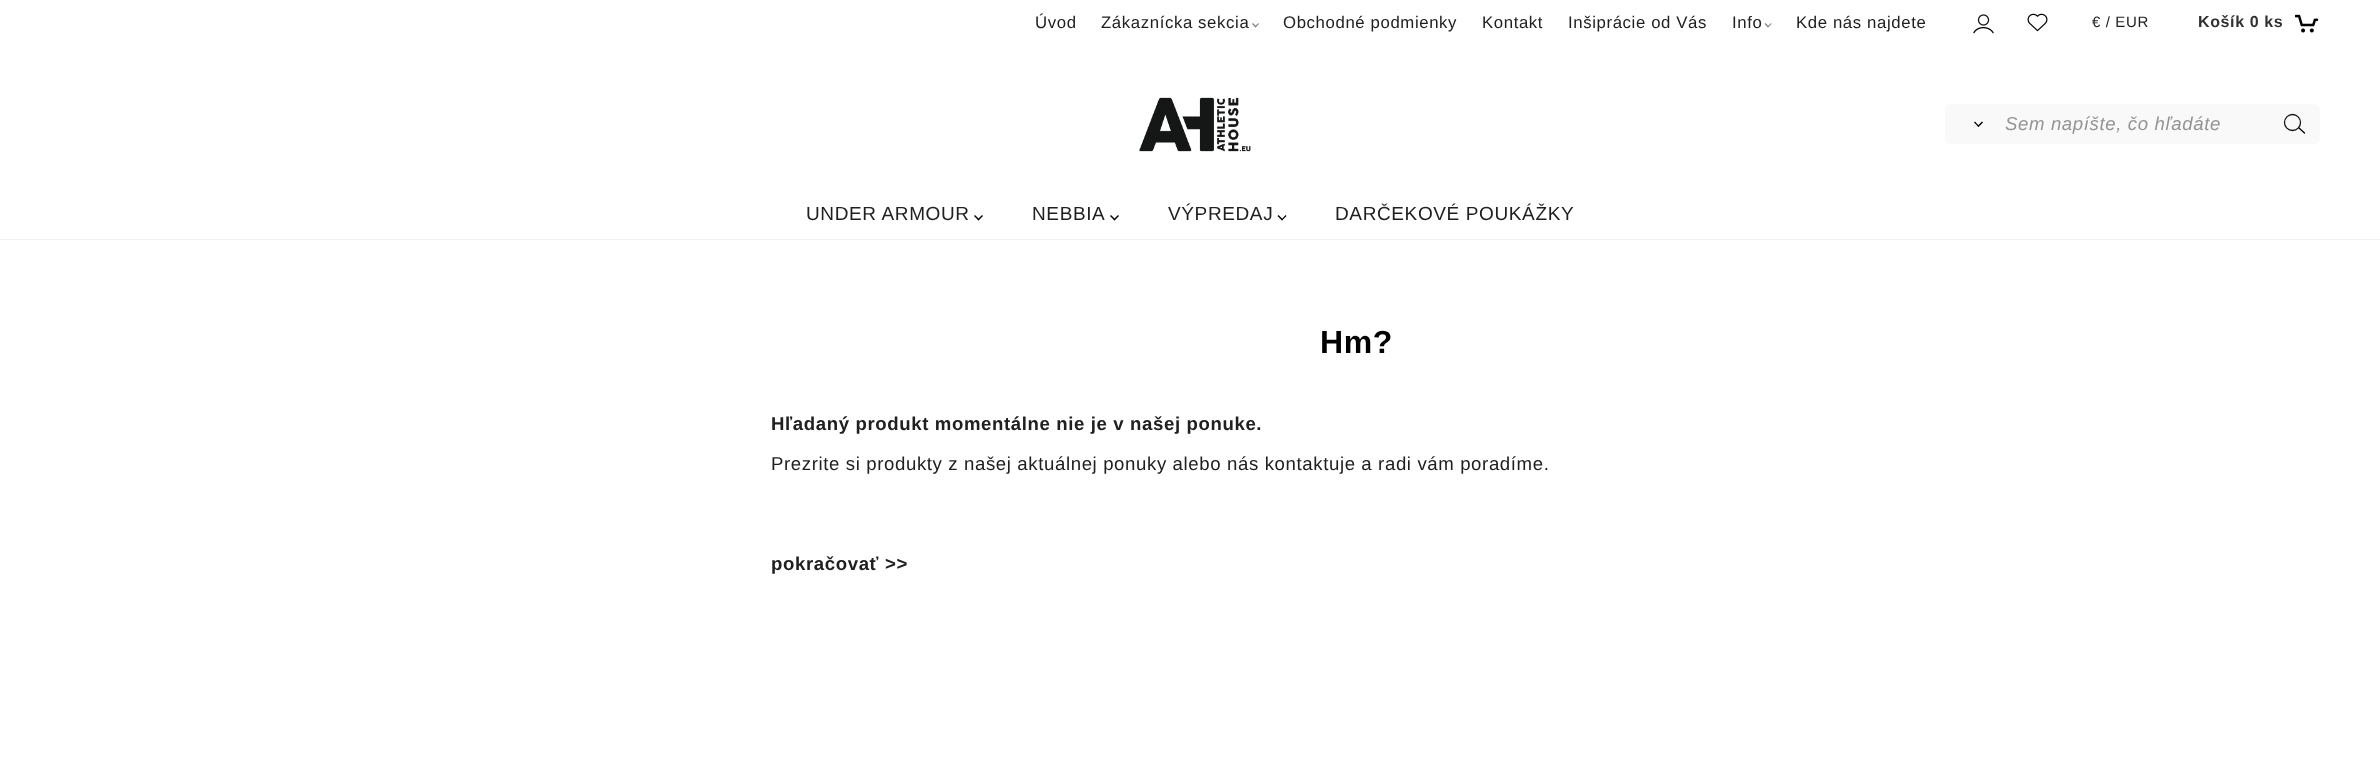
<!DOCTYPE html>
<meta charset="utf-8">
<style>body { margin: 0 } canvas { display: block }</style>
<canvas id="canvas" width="2380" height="766"></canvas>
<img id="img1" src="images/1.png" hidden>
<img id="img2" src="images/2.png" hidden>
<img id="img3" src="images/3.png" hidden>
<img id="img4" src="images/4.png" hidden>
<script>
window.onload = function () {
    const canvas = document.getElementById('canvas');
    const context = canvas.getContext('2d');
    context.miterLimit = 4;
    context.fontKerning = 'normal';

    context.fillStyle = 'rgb(255, 255, 255)';
    context.fillRect(0, 0, 2380, 766);
    context.fillStyle = 'rgb(136, 136, 136)';
    context.beginPath();
    context.moveTo(1254.5, 26.5);
    context.lineTo(1258.5, 23);
    context.lineTo(1259, 24);
    context.lineTo(1255.5, 27.5);
    context.closePath();
    context.fill();
    context.beginPath();
    context.moveTo(1252, 24);
    context.lineTo(1253, 23);
    context.lineTo(1256.5, 26.5);
    context.lineTo(1255.5, 27.5);
    context.closePath();
    context.fill();
    context.beginPath();
    context.moveTo(1767.5, 26.5);
    context.lineTo(1771, 23);
    context.lineTo(1771.5, 24);
    context.lineTo(1768, 27.5);
    context.closePath();
    context.fill();
    context.beginPath();
    context.moveTo(1764.5, 24);
    context.lineTo(1765.5, 23);
    context.lineTo(1769, 26.5);
    context.lineTo(1768, 27.5);
    context.closePath();
    context.fill();
    context.drawImage(document.getElementById('img1'), 1973, 14, 21, 20);
    context.drawImage(document.getElementById('img2'), 2027, 13, 21, 19);
    context.drawImage(document.getElementById('img3'), 2295, 14, 24, 19);
    context.drawImage(document.getElementById('img4'), 1139, 97, 112, 55);
    context.fillStyle = 'rgb(249, 249, 249)';
    context.beginPath();
    context.roundRect(1945, 104, 56, 40, [6, 0, 0, 6]);
    context.fill();
    context.fillStyle = 'rgb(0, 0, 0)';
    context.beginPath();
    context.moveTo(1977.5, 126);
    context.lineTo(1982, 121.5);
    context.lineTo(1983, 122.5);
    context.lineTo(1978.5, 127);
    context.closePath();
    context.fill();
    context.beginPath();
    context.moveTo(1974, 122.5);
    context.lineTo(1975, 121.5);
    context.lineTo(1979, 126);
    context.lineTo(1978.5, 127);
    context.closePath();
    context.fill();
    context.fillStyle = 'rgb(249, 249, 249)';
    context.beginPath();
    context.roundRect(2001, 104, 319, 40, [0, 6, 6, 0]);
    context.fill();
    context.beginPath();
    context.arc(2292.5, 122.5, 8, 0, 2 * Math.PI);
    context.strokeStyle = 'rgb(24, 24, 24)';
    context.lineWidth = 1.3;
    context.stroke();
    context.beginPath();
    context.moveTo(2299, 128);
    context.lineTo(2304.5, 133);
    context.strokeStyle = 'rgb(0, 0, 0)';
    context.lineCap = 'round';
    context.stroke();
    context.fillStyle = 'rgb(240, 240, 240)';
    context.fillRect(0, 239, 2380, 1);
    context.fillStyle = 'rgb(0, 0, 0)';
    context.beginPath();
    context.moveTo(977.5, 219.5);
    context.lineTo(982, 215);
    context.lineTo(983, 216);
    context.lineTo(978.5, 220.5);
    context.closePath();
    context.fill();
    context.beginPath();
    context.moveTo(974, 216);
    context.lineTo(975, 215);
    context.lineTo(979.5, 219.5);
    context.lineTo(978.5, 220.5);
    context.closePath();
    context.fill();
    context.beginPath();
    context.moveTo(1113.5, 219.5);
    context.lineTo(1118, 215);
    context.lineTo(1119, 216);
    context.lineTo(1114.5, 220.5);
    context.closePath();
    context.fill();
    context.beginPath();
    context.moveTo(1110, 216);
    context.lineTo(1111, 215);
    context.lineTo(1115.5, 219.5);
    context.lineTo(1114.5, 220.5);
    context.closePath();
    context.fill();
    context.beginPath();
    context.moveTo(1281.5, 219.5);
    context.lineTo(1285.5, 215);
    context.lineTo(1286.5, 216);
    context.lineTo(1282, 220.5);
    context.closePath();
    context.fill();
    context.beginPath();
    context.moveTo(1277.5, 216);
    context.lineTo(1278.5, 215);
    context.lineTo(1283, 219.5);
    context.lineTo(1282, 220.5);
    context.closePath();
    context.fill();
    context.letterSpacing = '0.62px';
    context.font = '16.75px Liberation Sans';
    context.fillStyle = 'rgb(32, 32, 32)';
    context.fillText('Úvod', 1035, 28);
    context.fillText('Zákaznícka sekcia', 1101, 28);
    context.fillText('Obchodné podmienky', 1283, 28);
    context.fillText('Kontakt', 1482, 28);
    context.fillText('Inšiprácie od Vás', 1568, 28);
    context.fillText('Info', 1732, 28);
    context.fillText('Kde nás najdete', 1796, 28);
    context.font = '15px Liberation Sans';
    context.fillText('€ / EUR', 2092, 27);
    context.font = 'bold 16px Liberation Sans';
    context.fillStyle = 'rgb(48, 48, 48)';
    context.fillText('Košík 0 ks', 2198, 27);
    context.font = 'italic 18.6px Liberation Sans';
    context.fillStyle = 'rgb(148, 148, 148)';
    context.fillText('Sem napíšte, čo hľadáte', 2005, 130);
    context.font = '19px Liberation Sans';
    context.fillStyle = 'rgb(32, 32, 32)';
    context.fillText('UNDER ARMOUR', 806, 220);
    context.fillText('NEBBIA', 1032, 220);
    context.fillText('VÝPREDAJ', 1168, 220);
    context.fillText('DARČEKOVÉ POUKÁŽKY', 1335, 220);
    context.font = 'bold 32px Liberation Sans';
    context.fillStyle = 'rgb(0, 0, 0)';
    context.fillText('Hm?', 1320, 353);
    context.font = 'bold 18.6px Liberation Sans';
    context.fillStyle = 'rgb(32, 32, 32)';
    context.fillText('Hľadaný produkt momentálne nie je v našej ponuke.', 771, 430);
    context.font = '18.6px Liberation Sans';
    context.fillText('Prezrite si produkty z našej aktuálnej ponuky alebo nás kontaktuje a radi vám poradíme.', 771, 470);
    context.font = 'bold 18.6px Liberation Sans';
    context.fillText('pokračovať >>', 771, 570);
};
</script>
